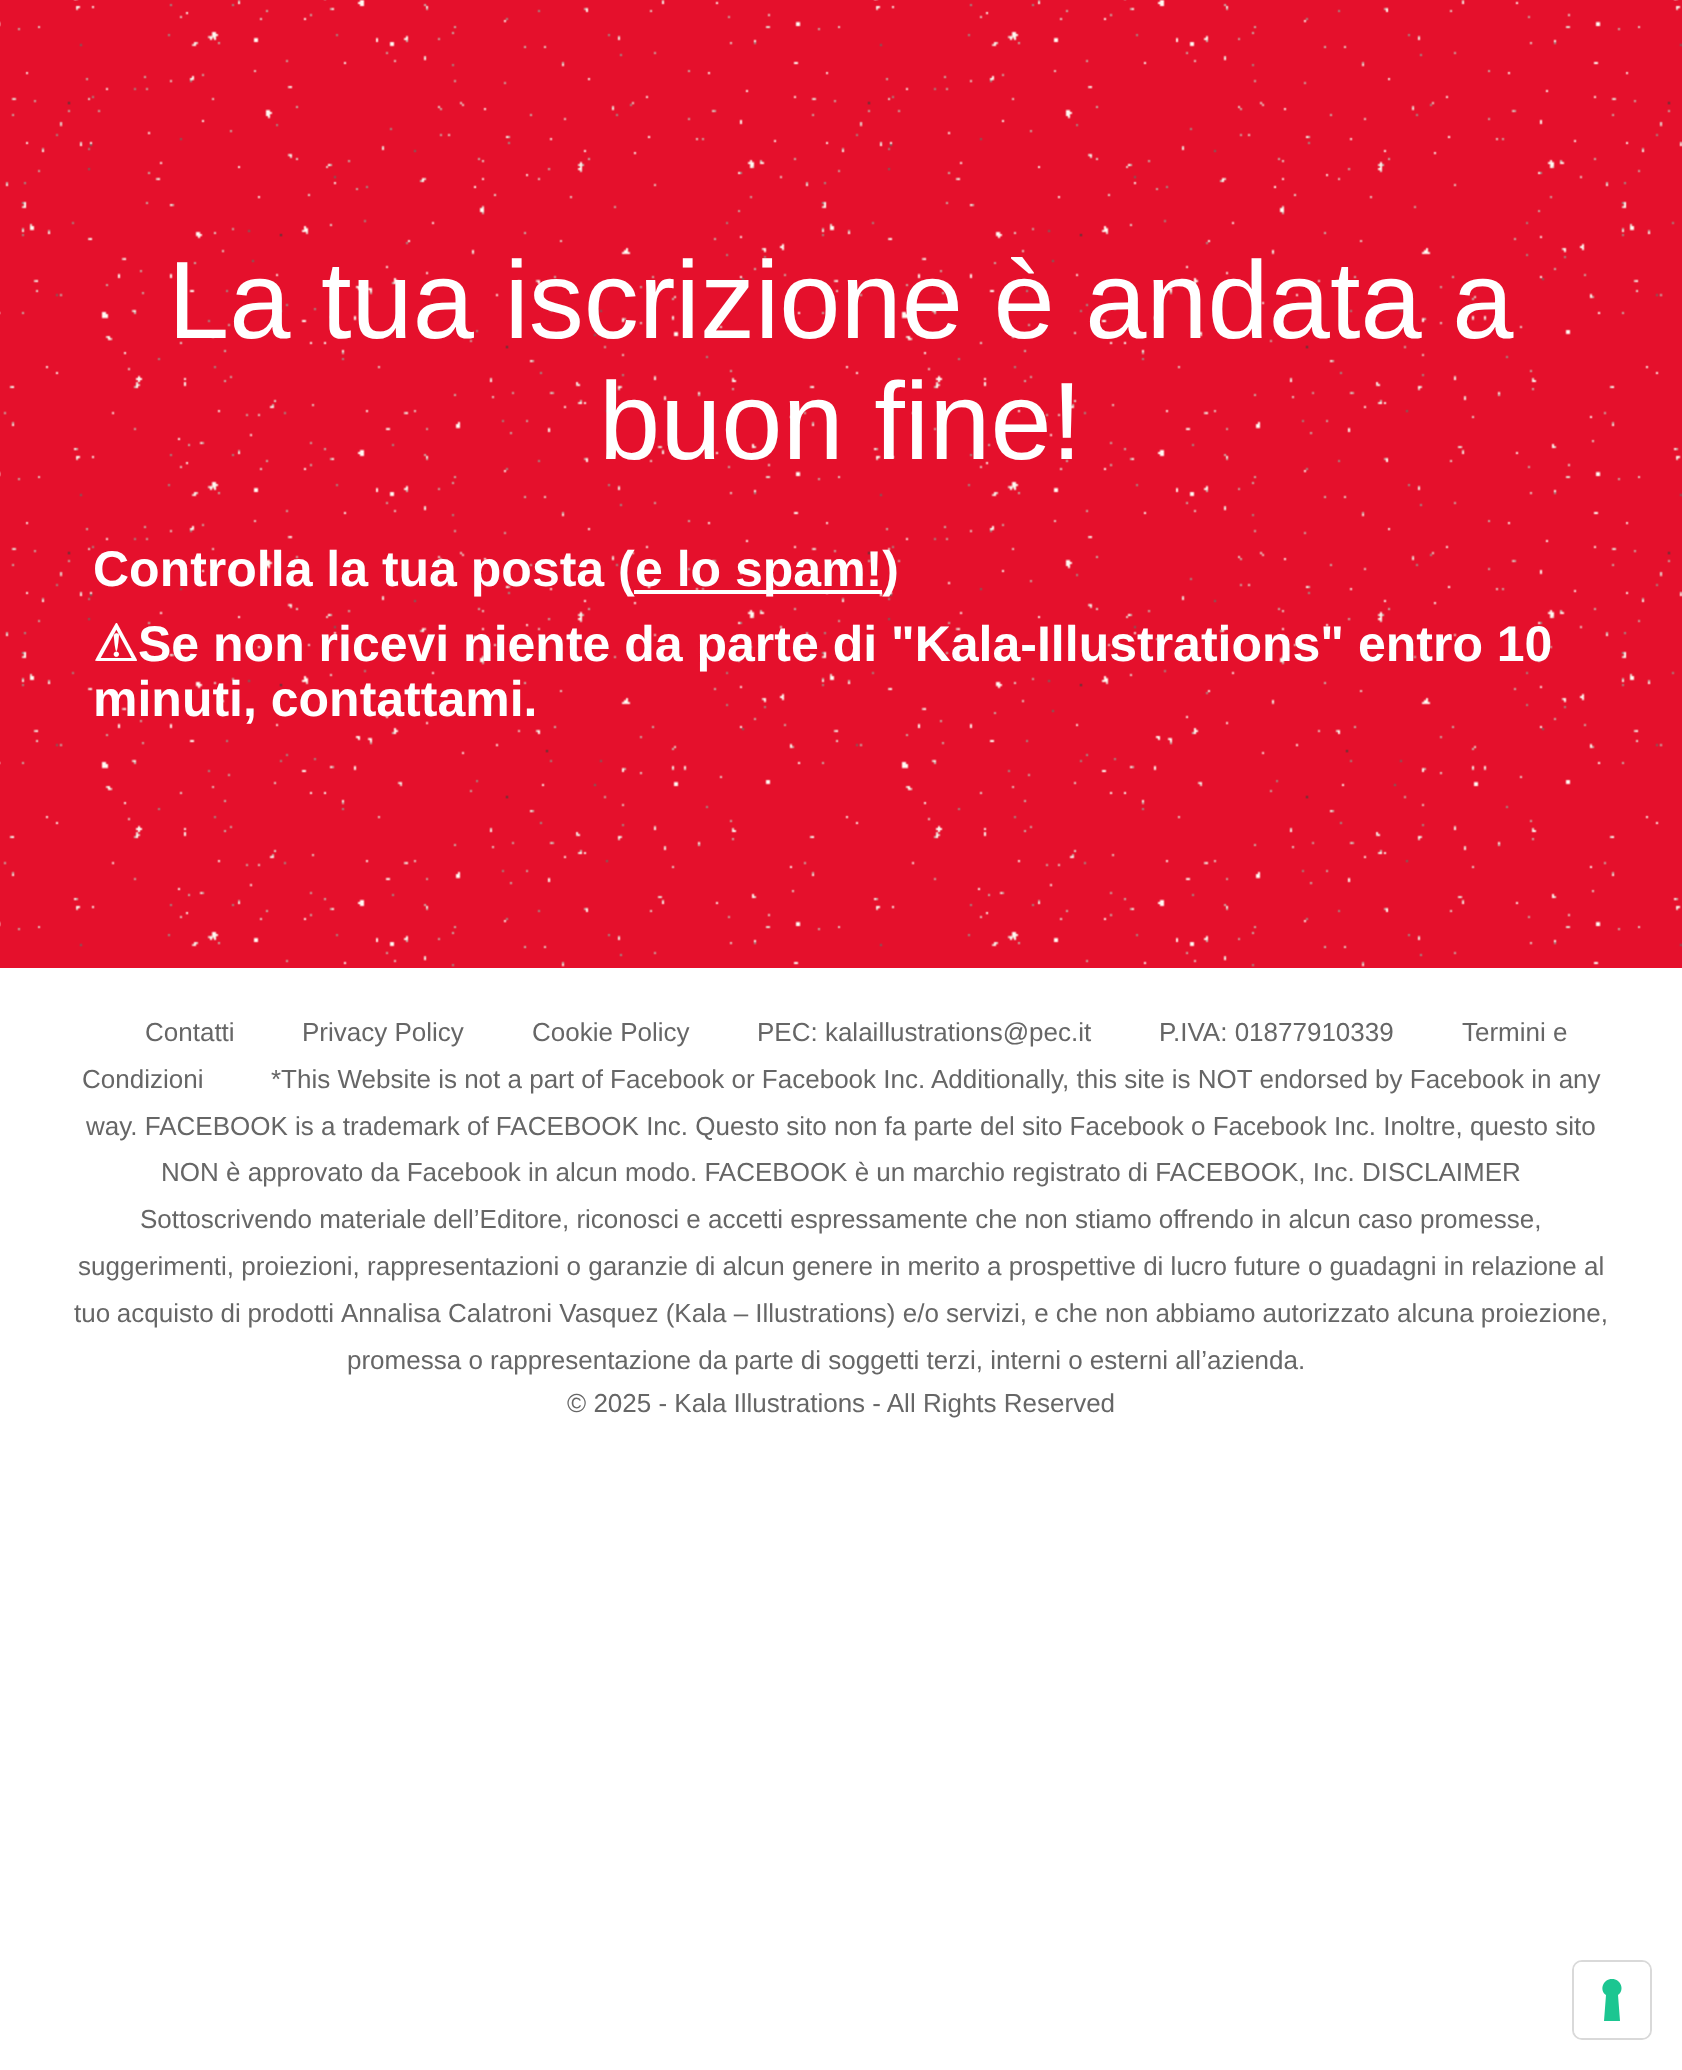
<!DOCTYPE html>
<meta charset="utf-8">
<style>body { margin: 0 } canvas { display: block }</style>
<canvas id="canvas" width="1682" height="2070"></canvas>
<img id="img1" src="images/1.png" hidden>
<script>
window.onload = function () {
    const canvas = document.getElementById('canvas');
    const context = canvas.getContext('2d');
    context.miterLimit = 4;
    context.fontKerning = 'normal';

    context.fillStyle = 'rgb(255, 255, 255)';
    context.fillRect(0, 0, 1682, 2070);
    context.fillStyle = 'rgb(229, 16, 44)';
    context.fillRect(0, 0, 1682, 968);
    context.drawImage(document.getElementById('img1'), 0, 0, 1682, 967);
    context.fillStyle = 'rgb(255, 255, 255)';
    context.fillRect(634, 590, 248, 4);
    context.beginPath();
    context.roundRect(1573, 1961, 78, 78, 9);
    context.strokeStyle = 'rgb(217, 217, 217)';
    context.lineWidth = 2;
    context.stroke();
    context.beginPath();
    context.roundRect(1574, 1962, 76, 76, 8);
    context.fill();
    context.fillStyle = 'rgb(28, 198, 145)';
    context.beginPath();
    context.moveTo(1612, 1979);
    context.bezierCurveTo(1621, 1979, 1625, 1990, 1618, 1995);
    context.lineTo(1620, 2021);
    context.lineTo(1604, 2021);
    context.lineTo(1606, 1995);
    context.bezierCurveTo(1599, 1990, 1603, 1979, 1612, 1979);
    context.closePath();
    context.fill('evenodd');
    context.font = '110px Liberation Sans';
    context.fillStyle = 'rgb(255, 255, 255)';
    context.fillText('La tua iscrizione è andata a', 168, 338);
    context.fillText('buon fine!', 599, 459);
    context.font = 'bold 50px Liberation Sans';
    context.fillText('Controlla la tua posta (', 93, 586);
    context.fillText('e lo spam!)', 635, 586);
    context.font = 'bold 50px DejaVu Sans';
    context.fillText('⚠', 93, 661);
    context.font = 'bold 50px Liberation Sans';
    context.fillText('Se non ricevi niente da parte di "Kala-Illustrations" entro 10', 138, 661);
    context.fillText('minuti, contattami.', 93, 716);
    context.font = '26px Liberation Sans';
    context.fillStyle = 'rgb(102, 102, 102)';
    context.fillText('Contatti', 145, 1041);
    context.fillText('Privacy Policy', 302, 1041);
    context.fillText('Cookie Policy', 532, 1041);
    context.fillText('PEC: kalaillustrations@pec.it', 757, 1041);
    context.fillText('P.IVA: 01877910339', 1159, 1041);
    context.fillText('Termini e', 1462, 1041);
    context.fillText('Condizioni', 82, 1088);
    context.fillText('*This Website is not a part of Facebook or Facebook Inc. Additionally, this site is NOT endorsed by Facebook in any', 271, 1088);
    context.fillText('way. FACEBOOK is a trademark of FACEBOOK Inc. Questo sito non fa parte del sito Facebook o Facebook Inc. Inoltre, questo sito', 86, 1135);
    context.fillText('NON è approvato da Facebook in alcun modo. FACEBOOK è un marchio registrato di FACEBOOK, Inc. DISCLAIMER', 161, 1181);
    context.fillText('Sottoscrivendo materiale dell’Editore, riconosci e accetti espressamente che non stiamo offrendo in alcun caso promesse,', 140, 1228);
    context.fillText('suggerimenti, proiezioni, rappresentazioni o garanzie di alcun genere in merito a prospettive di lucro future o guadagni in relazione al', 78, 1275);
    context.wordSpacing = '-0.5px';
    context.fillText('tuo acquisto di prodotti', 74, 1322);
    context.wordSpacing = '0px';
    context.fillText('Annalisa Calatroni Vasquez (Kala – Illustrations) e/o servizi, e che non abbiamo autorizzato alcuna proiezione,', 341, 1322);
    context.fillText('promessa o rappresentazione da parte di soggetti terzi, interni o esterni all’azienda.', 347, 1369);
    context.fillText('© 2025 - Kala Illustrations - All Rights Reserved', 567, 1412);
};
</script>
